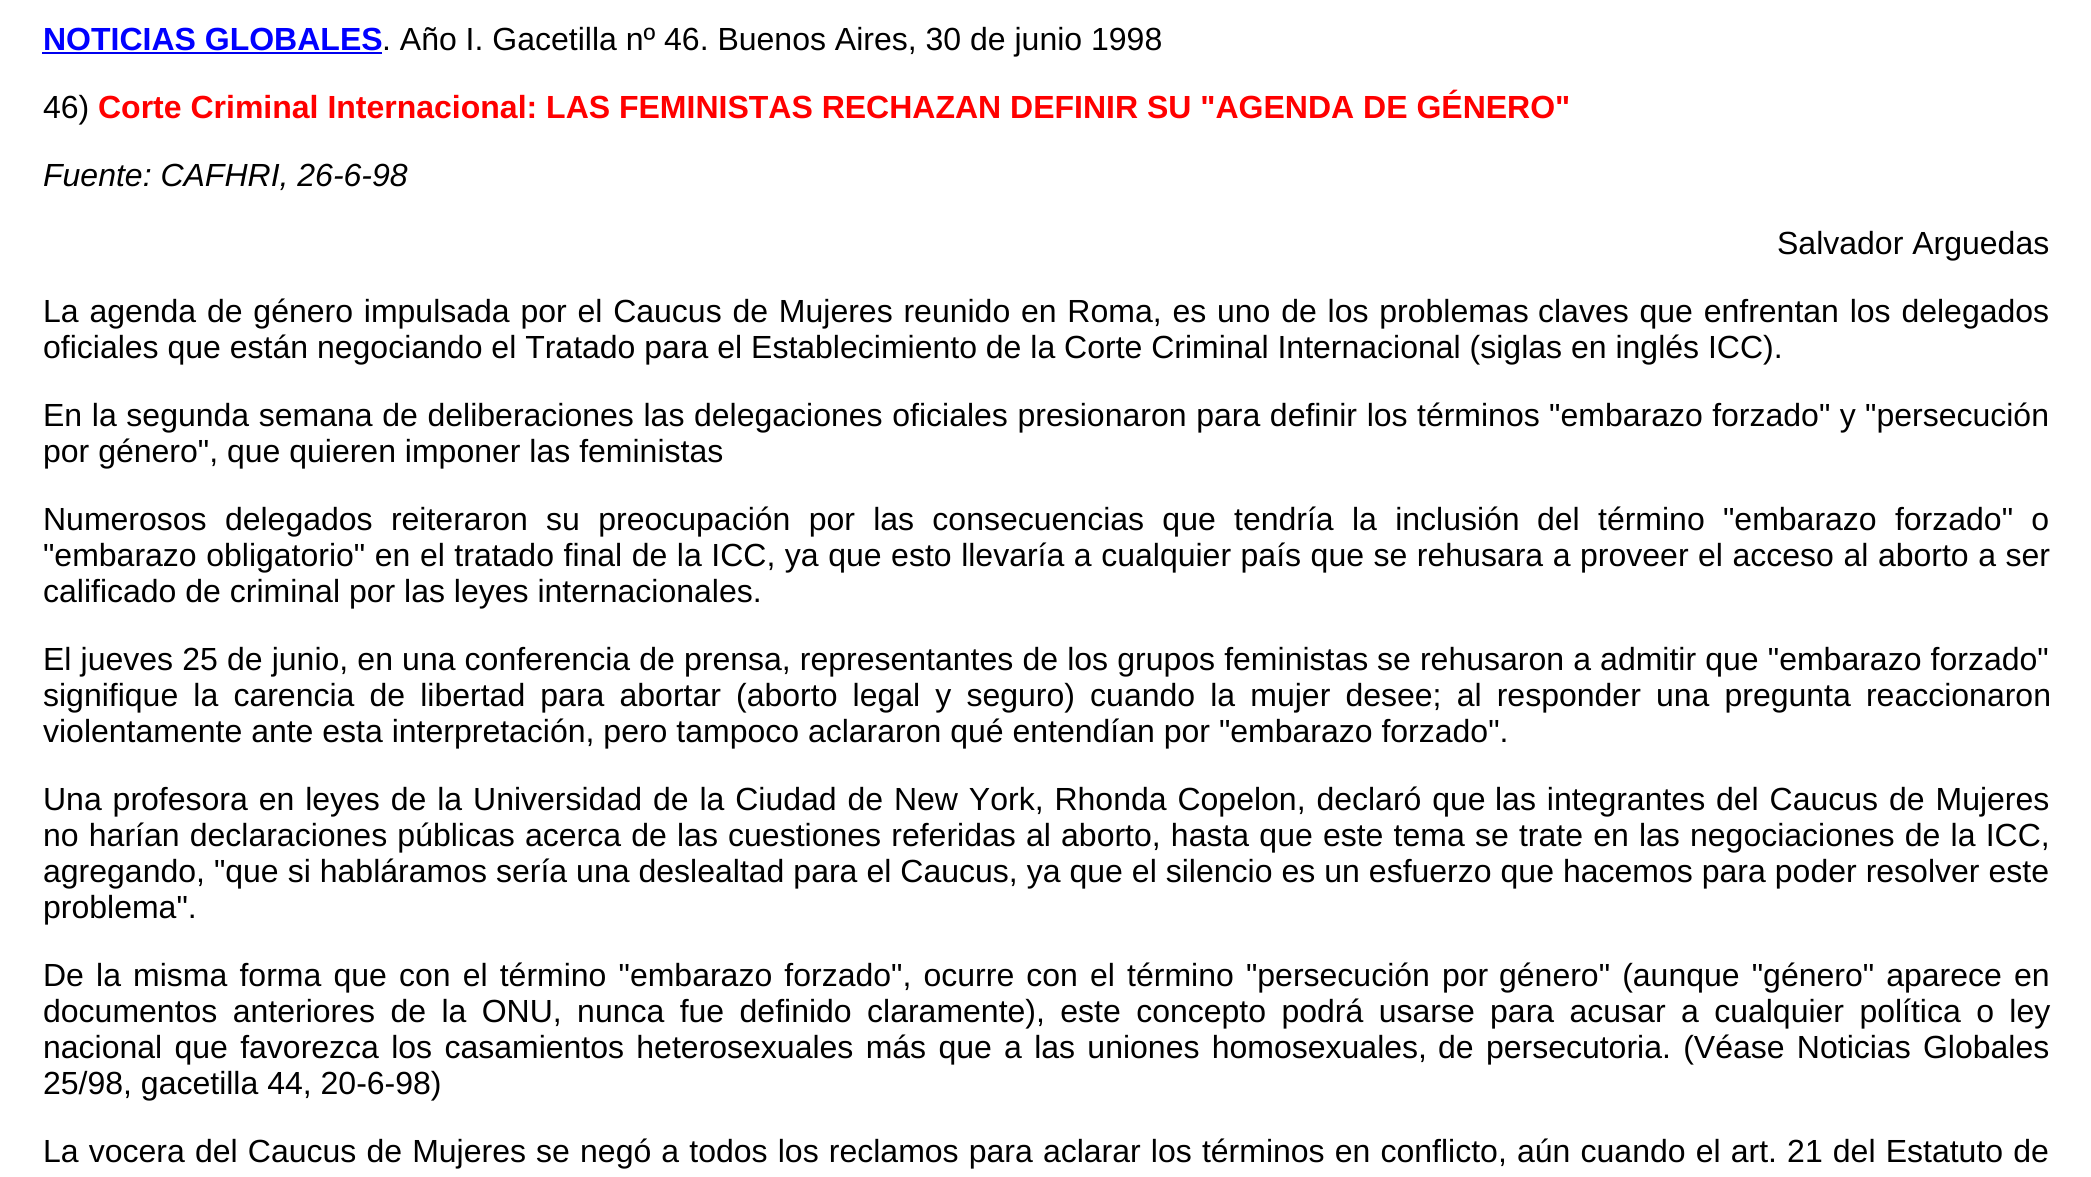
import math
import cairo



def draw_spaced(context, x, y, s, letter, word):
    context.move_to(x, y)
    for ch in s:
        context.show_text(ch)
        context.rel_move_to(letter + word * (ch == ' '), 0)


def draw(context):
    context.set_source_rgb(1, 1, 1)
    context.paint()
    context.set_source_rgb(0, 0, 238 / 255)
    context.rectangle(42, 52, 340, 2)
    context.fill()
    context.select_font_face("Liberation Sans", cairo.FontSlant.NORMAL, cairo.FontWeight.BOLD)
    context.set_font_size(32)
    context.set_source_rgb(0, 0, 1)
    context.move_to(43, 50)
    context.show_text("NOTICIAS GLOBALES")
    context.select_font_face("Liberation Sans")
    context.set_source_rgb(0, 0, 0)
    context.move_to(382, 50)
    context.show_text(". Año I. Gacetilla nº 46. Buenos Aires, 30 de junio 1998")
    context.move_to(43, 118)
    context.show_text("46)")
    context.select_font_face("Liberation Sans", cairo.FontSlant.NORMAL, cairo.FontWeight.BOLD)
    context.set_source_rgb(1, 0, 0)
    context.move_to(98, 118)
    context.show_text("Corte Criminal Internacional: LAS FEMINISTAS RECHAZAN DEFINIR SU \"AGENDA DE GÉNERO\"")
    context.select_font_face("Liberation Sans", cairo.FontSlant.ITALIC)
    context.set_source_rgb(0, 0, 0)
    context.move_to(43, 186)
    context.show_text("Fuente: CAFHRI, 26-6-98")
    context.select_font_face("Liberation Sans")
    context.move_to(1777, 254)
    context.show_text("Salvador Arguedas")
    draw_spaced(context, 43, 322, "La agenda de género impulsada por el Caucus de Mujeres reunido en Roma, es uno de los problemas", 0, 1.9)
    draw_spaced(context, 1538, 322, "claves que enfrentan los delegados", 0, 1.9)
    context.move_to(43, 358)
    context.show_text("oficiales que están negociando el Tratado para el Establecimiento de la Corte Criminal Internacional (siglas en inglés ICC).")
    draw_spaced(context, 43, 426, "En la segunda semana de deliberaciones las delegaciones oficiales presionaron para definir los", 0, 0.75)
    draw_spaced(context, 1417, 426, "términos \"embarazo forzado\" y \"persecución", 0, 0.5)
    context.move_to(43, 462)
    context.show_text("por género\", que quieren imponer las feministas")
    draw_spaced(context, 43, 530, "Numerosos delegados reiteraron su preocupación por las consecuencias que tendría la inclusión", 0, 9.4)
    draw_spaced(context, 1537, 530, "del término \"embarazo forzado\" o", 0, 9.4)
    draw_spaced(context, 43, 566, "\"embarazo obligatorio\" en el tratado final de la ICC, ya que esto llevaría a cualquier país que se rehusara a proveer el acceso al aborto a ser", 0, 0.65)
    context.move_to(43, 602)
    context.show_text("calificado de criminal por las leyes internacionales.")
    draw_spaced(context, 43, 670, "El jueves 25 de junio, en una conferencia de prensa, representantes de los grupos feministas", 0, 0.25)
    draw_spaced(context, 1377, 670, "se rehusaron a admitir que \"embarazo forzado\"", 0, 0.25)
    draw_spaced(context, 43, 706, "signifique la carencia de libertad para abortar (aborto legal y seguro) cuando la mujer desee; al responder una pregunta reaccionaron", 0, 6.25)
    context.move_to(43, 742)
    context.show_text("violentamente ante esta interpretación, pero tampoco aclararon qué entendían por \"embarazo forzado\".")
    draw_spaced(context, 43, 810, "Una profesora en leyes de la Universidad de la Ciudad de New York, Rhonda Copelon, declaró que", 0, 2)
    draw_spaced(context, 1495, 810, "las integrantes del Caucus de Mujeres", 0, 2)
    draw_spaced(context, 43, 846, "no harían declaraciones públicas acerca de las cuestiones referidas al aborto, hasta que este tema se trate en las negociaciones de la ICC,", 0, 1.3)
    draw_spaced(context, 43, 882, "agregando, \"que si habláramos sería una deslealtad para el Caucus, ya que el silencio es un esfuerzo que hacemos para poder resolver este", 0, 0.1)
    context.move_to(43, 918)
    context.show_text("problema\".")
    draw_spaced(context, 43, 986, "De la misma forma que con el término \"embarazo forzado\", ocurre con el término \"persecución por", 0, 3.25)
    draw_spaced(context, 1499, 986, "género\" (aunque \"género\" aparece en", 0, 3.25)
    draw_spaced(context, 43, 1022, "documentos anteriores de la ONU, nunca fue definido claramente), este concepto podrá usarse para acusar a cualquier política o ley", 0, 6.5)
    draw_spaced(context, 43, 1058, "nacional que favorezca los casamientos heterosexuales más que a las uniones homosexuales,", 0, 3.4)
    draw_spaced(context, 1438, 1058, "de persecutoria. (Véase Noticias Globales", 0, 3.4)
    context.move_to(43, 1094)
    context.show_text("25/98, gacetilla 44, 20-6-98)")
    draw_spaced(context, 43, 1162, "La vocera del Caucus de Mujeres se negó a todos los reclamos para aclarar los términos en conflicto,", 0, 1.25)
    draw_spaced(context, 1517, 1162, "aún cuando el art. 21 del Estatuto de", 0, 1.25)


surface = cairo.ImageSurface(cairo.Format.RGB24, 2091, 1177)
context = cairo.Context(surface)
options = cairo.FontOptions()
options.set_hint_metrics(cairo.HintMetrics.OFF)
options.set_hint_style(cairo.HintStyle.NONE)
context.set_font_options(options)
context.set_miter_limit(4)
draw(context)
surface.write_to_png("out.png")
